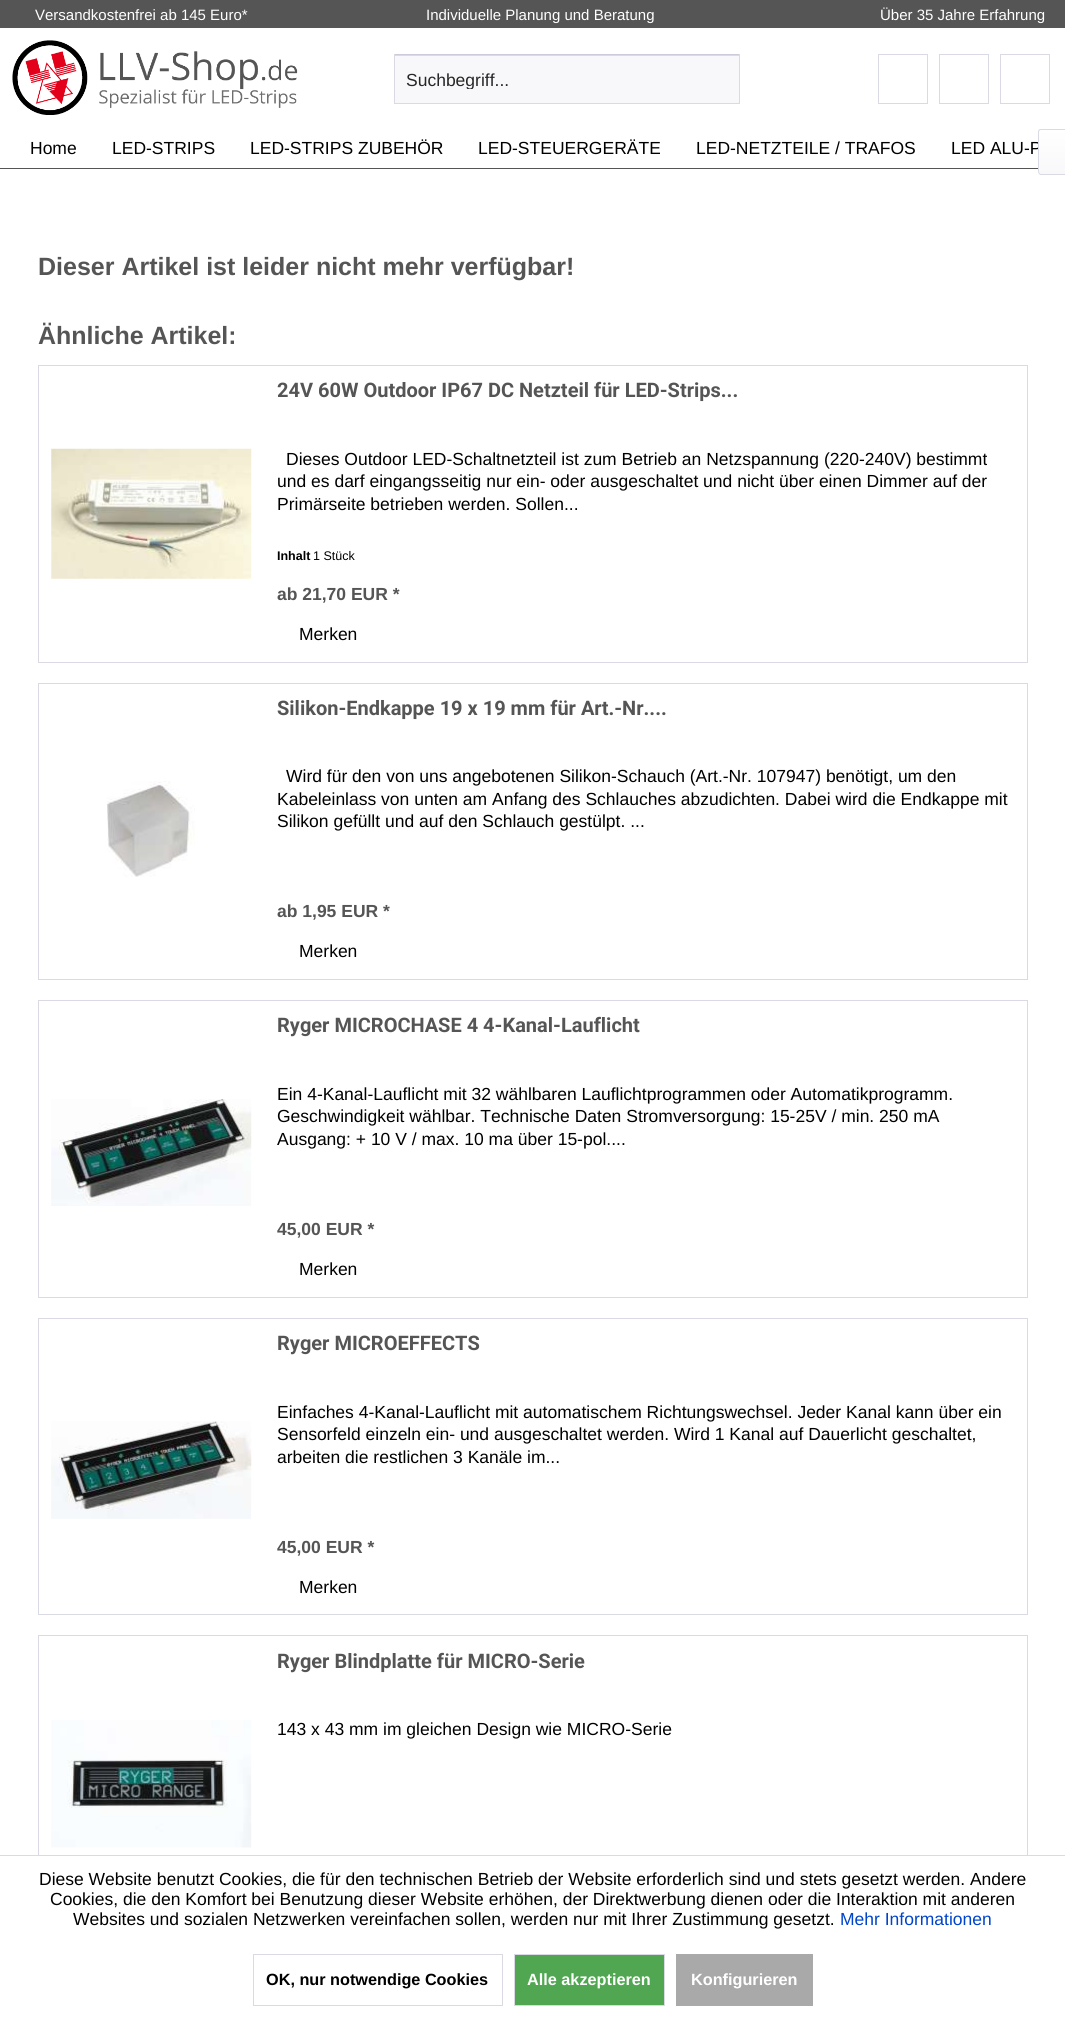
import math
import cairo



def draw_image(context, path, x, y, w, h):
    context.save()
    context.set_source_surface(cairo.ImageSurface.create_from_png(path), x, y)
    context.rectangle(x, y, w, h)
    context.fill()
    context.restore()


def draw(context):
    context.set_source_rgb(1, 1, 1)
    context.paint()
    context.set_source_rgb(85 / 255, 85 / 255, 85 / 255)
    context.rectangle(0, 0, 1065, 28)
    context.fill()
    draw_image(context, "images/1.png", 12, 40, 286, 75)
    context.set_source_rgb(248 / 255, 248 / 255, 250 / 255)
    context.rectangle(395, 56, 344, 47)
    context.fill()
    context.set_source_rgb(218 / 255, 218 / 255, 229 / 255)
    context.rectangle(395, 55, 344, 1)
    context.fill()
    context.set_source_rgb(203 / 255, 203 / 255, 219 / 255)
    context.rectangle(394, 54, 346, 1)
    context.fill()
    context.set_source_rgb(218 / 255, 218 / 255, 229 / 255)
    context.rectangle(739, 54, 1, 50)
    context.fill()
    context.rectangle(394, 103, 346, 1)
    context.fill()
    context.rectangle(394, 54, 1, 50)
    context.fill()
    context.rectangle(878.5, 54.5, 49, 49)
    context.set_line_width(1)
    context.stroke()
    context.rectangle(939.5, 54.5, 49, 49)
    context.stroke()
    context.rectangle(1000.5, 54.5, 49, 49)
    context.stroke()
    context.set_source_rgb(85 / 255, 85 / 255, 85 / 255)
    context.rectangle(0, 168, 1038, 1)
    context.fill()
    context.rectangle(38.5, 365.5, 989, 297)
    context.set_source_rgb(218 / 255, 218 / 255, 229 / 255)
    context.stroke()
    draw_image(context, "images/2.png", 51, 448, 201, 131)
    context.rectangle(38.5, 683.5, 989, 296)
    context.stroke()
    draw_image(context, "images/3.png", 107, 781, 88, 96)
    context.rectangle(38.5, 1000.5, 989, 297)
    context.stroke()
    draw_image(context, "images/4.png", 51, 1099, 201, 107)
    context.rectangle(38.5, 1318.5, 989, 296)
    context.stroke()
    draw_image(context, "images/5.png", 51, 1421, 201, 98)
    context.rectangle(38.5, 1635.5, 989, 297)
    context.stroke()
    draw_image(context, "images/6.png", 51, 1720, 201, 128)
    context.set_source_rgb(1, 1, 1)
    context.rectangle(38, 1856, 990, 77)
    context.fill()
    context.set_source_rgb(218 / 255, 218 / 255, 229 / 255)
    context.rectangle(0, 1855, 1065, 1)
    context.fill()
    context.rectangle(253.5, 1954.5, 249, 51)
    context.stroke()
    context.set_source_rgb(81 / 255, 167 / 255, 81 / 255)
    context.rectangle(514.5, 1954.5, 150, 51)
    context.fill_preserve()
    context.set_source_rgb(218 / 255, 218 / 255, 229 / 255)
    context.stroke()
    context.set_source_rgb(169 / 255, 169 / 255, 169 / 255)
    context.rectangle(676, 1954, 137, 52)
    context.fill()
    context.select_font_face("Liberation Sans")
    context.set_font_size(15)
    context.set_source_rgb(1, 1, 1)
    context.move_to(35, 20)
    context.show_text("Versandkostenfrei ab 145 Euro*")
    context.move_to(426, 20)
    context.show_text("Individuelle Planung und Beratung")
    context.move_to(880, 20)
    context.show_text("Über 35 Jahre Erfahrung")
    context.save()
    context.rectangle(406, 69, 280, 20)
    context.clip()
    context.set_font_size(17.5)
    context.set_source_rgb(38 / 255, 38 / 255, 38 / 255)
    context.move_to(406, 86)
    context.show_text("Suchbegriff...")
    context.restore()
    context.set_font_size(17.5)
    context.set_source_rgb(0, 0, 0)
    context.move_to(30, 154)
    context.show_text("Home")
    context.move_to(112, 154)
    context.show_text("LED-STRIPS")
    context.move_to(250, 154)
    context.show_text("LED-STRIPS ZUBEHÖR")
    context.move_to(478, 154)
    context.show_text("LED-STEUERGERÄTE")
    context.move_to(696, 154)
    context.show_text("LED-NETZTEILE / TRAFOS")
    context.move_to(951, 154)
    context.show_text("LED ALU-P")
    gradient = cairo.LinearGradient(1052, 130, 1052, 174)
    gradient.add_color_stop_rgba(0, 1, 1, 1, 1)
    gradient.add_color_stop_rgba(1, 248 / 255, 248 / 255, 250 / 255, 1)
    context.set_source(gradient)
    context.new_path()
    context.move_to(1041.5, 130)
    context.line_to(1065, 130)
    context.line_to(1065, 174)
    context.line_to(1041.5, 174)
    context.curve_to(1040, 174, 1039, 173, 1039, 171.5)
    context.line_to(1039, 132.5)
    context.curve_to(1039, 131, 1040, 130, 1041.5, 130)
    context.close_path()
    context.fill()
    context.set_source_rgb(218 / 255, 218 / 255, 229 / 255)
    context.set_fill_rule(cairo.FillRule.EVEN_ODD)
    context.new_path()
    context.move_to(1041, 129)
    context.line_to(1065, 129)
    context.line_to(1065, 175)
    context.line_to(1041, 175)
    context.curve_to(1039, 175, 1038, 173, 1038, 171)
    context.line_to(1038, 132)
    context.curve_to(1038, 130, 1039, 129, 1041, 129)
    context.close_path()
    context.move_to(1041, 130)
    context.line_to(1065, 130)
    context.line_to(1065, 174)
    context.line_to(1041, 174)
    context.curve_to(1040, 174, 1039, 173, 1039, 171)
    context.line_to(1039, 132)
    context.curve_to(1039, 131, 1040, 130, 1041, 130)
    context.close_path()
    context.fill()
    context.select_font_face("Liberation Sans", cairo.FontSlant.NORMAL, cairo.FontWeight.BOLD)
    context.set_font_size(25)
    context.set_source_rgb(85 / 255, 85 / 255, 85 / 255)
    context.move_to(38, 275)
    context.show_text("Dieser Artikel ist leider nicht mehr verfügbar!")
    context.move_to(38, 344)
    context.show_text("Ähnliche Artikel:")
    context.select_font_face("Roboto", cairo.FontSlant.NORMAL, cairo.FontWeight.BOLD)
    context.set_font_size(20)
    context.move_to(277, 397)
    context.show_text("24V 60W Outdoor IP67 DC Netzteil für LED-Strips...")
    context.select_font_face("Liberation Sans")
    context.set_font_size(17.5)
    context.set_source_rgb(0, 0, 0)
    context.move_to(286, 465)
    context.show_text("Dieses Outdoor LED-Schaltnetzteil ist zum Betrieb an Netzspannung (220-240V) bestimmt")
    context.move_to(277, 487)
    context.show_text("und es darf eingangsseitig nur ein- oder ausgeschaltet und nicht über einen Dimmer auf der")
    context.move_to(277, 510)
    context.show_text("Primärseite betrieben werden. Sollen...")
    context.select_font_face("Liberation Sans", cairo.FontSlant.NORMAL, cairo.FontWeight.BOLD)
    context.set_font_size(12.5)
    context.move_to(277, 560)
    context.show_text("Inhalt")
    context.select_font_face("Liberation Sans")
    context.move_to(313, 560)
    context.show_text("1 Stück")
    context.select_font_face("Liberation Sans", cairo.FontSlant.NORMAL, cairo.FontWeight.BOLD)
    context.set_font_size(17.5)
    context.set_source_rgb(85 / 255, 85 / 255, 85 / 255)
    context.move_to(277, 600)
    context.show_text("ab 21,70 EUR *")
    context.select_font_face("Liberation Sans")
    context.set_source_rgb(0, 0, 0)
    context.move_to(299, 640)
    context.show_text("Merken")
    context.select_font_face("Roboto", cairo.FontSlant.NORMAL, cairo.FontWeight.BOLD)
    context.set_font_size(20)
    context.set_source_rgb(85 / 255, 85 / 255, 85 / 255)
    context.move_to(277, 715)
    context.show_text("Silikon-Endkappe 19 x 19 mm für Art.-Nr....")
    context.select_font_face("Liberation Sans")
    context.set_font_size(17.5)
    context.set_source_rgb(0, 0, 0)
    context.move_to(286, 782)
    context.show_text("Wird für den von uns angebotenen Silikon-Schauch (Art.-Nr. 107947) benötigt, um den")
    context.move_to(277, 805)
    context.show_text("Kabeleinlass von unten am Anfang des Schlauches abzudichten. Dabei wird die Endkappe mit")
    context.move_to(277, 827)
    context.show_text("Silikon gefüllt und auf den Schlauch gestülpt. ...")
    context.select_font_face("Liberation Sans", cairo.FontSlant.NORMAL, cairo.FontWeight.BOLD)
    context.set_source_rgb(85 / 255, 85 / 255, 85 / 255)
    context.move_to(277, 917)
    context.show_text("ab 1,95 EUR *")
    context.select_font_face("Liberation Sans")
    context.set_source_rgb(0, 0, 0)
    context.move_to(299, 957)
    context.show_text("Merken")
    context.select_font_face("Roboto", cairo.FontSlant.NORMAL, cairo.FontWeight.BOLD)
    context.set_font_size(20)
    context.set_source_rgb(85 / 255, 85 / 255, 85 / 255)
    context.move_to(277, 1032)
    context.show_text("Ryger MICROCHASE 4 4-Kanal-Lauflicht")
    context.select_font_face("Liberation Sans")
    context.set_font_size(17.5)
    context.set_source_rgb(0, 0, 0)
    context.move_to(277, 1100)
    context.show_text("Ein 4-Kanal-Lauflicht mit 32 wählbaren Lauflichtprogrammen oder Automatikprogramm.")
    context.move_to(277, 1122)
    context.show_text("Geschwindigkeit wählbar. Technische Daten Stromversorgung: 15-25V / min. 250 mA")
    context.move_to(277, 1145)
    context.show_text("Ausgang: + 10 V / max. 10 ma über 15-pol....")
    context.select_font_face("Liberation Sans", cairo.FontSlant.NORMAL, cairo.FontWeight.BOLD)
    context.set_source_rgb(85 / 255, 85 / 255, 85 / 255)
    context.move_to(277, 1235)
    context.show_text("45,00 EUR *")
    context.select_font_face("Liberation Sans")
    context.set_source_rgb(0, 0, 0)
    context.move_to(299, 1275)
    context.show_text("Merken")
    context.select_font_face("Roboto", cairo.FontSlant.NORMAL, cairo.FontWeight.BOLD)
    context.set_font_size(20)
    context.set_source_rgb(85 / 255, 85 / 255, 85 / 255)
    context.move_to(277, 1350)
    context.show_text("Ryger MICROEFFECTS")
    context.select_font_face("Liberation Sans")
    context.set_font_size(17.5)
    context.set_source_rgb(0, 0, 0)
    context.move_to(277, 1418)
    context.show_text("Einfaches 4-Kanal-Lauflicht mit automatischem Richtungswechsel. Jeder Kanal kann über ein")
    context.move_to(277, 1440)
    context.show_text("Sensorfeld einzeln ein- und ausgeschaltet werden. Wird 1 Kanal auf Dauerlicht geschaltet,")
    context.move_to(277, 1463)
    context.show_text("arbeiten die restlichen 3 Kanäle im...")
    context.select_font_face("Liberation Sans", cairo.FontSlant.NORMAL, cairo.FontWeight.BOLD)
    context.set_source_rgb(85 / 255, 85 / 255, 85 / 255)
    context.move_to(277, 1553)
    context.show_text("45,00 EUR *")
    context.select_font_face("Liberation Sans")
    context.set_source_rgb(0, 0, 0)
    context.move_to(299, 1593)
    context.show_text("Merken")
    context.select_font_face("Roboto", cairo.FontSlant.NORMAL, cairo.FontWeight.BOLD)
    context.set_font_size(20)
    context.set_source_rgb(85 / 255, 85 / 255, 85 / 255)
    context.move_to(277, 1668)
    context.show_text("Ryger Blindplatte für MICRO-Serie")
    context.select_font_face("Liberation Sans")
    context.set_font_size(17.5)
    context.set_source_rgb(0, 0, 0)
    context.move_to(277, 1735)
    context.show_text("143 x 43 mm im gleichen Design wie MICRO-Serie")
    context.move_to(39, 1885)
    context.show_text("Diese Website benutzt Cookies, die für den technischen Betrieb der Website erforderlich sind und stets gesetzt werden. Andere")
    context.move_to(50, 1905)
    context.show_text("Cookies, die den Komfort bei Benutzung dieser Website erhöhen, der Direktwerbung dienen oder die Interaktion mit anderen")
    context.move_to(73, 1925)
    context.show_text("Websites und sozialen Netzwerken vereinfachen sollen, werden nur mit Ihrer Zustimmung gesetzt.")
    context.set_source_rgb(0, 68 / 255, 204 / 255)
    context.move_to(840, 1925)
    context.show_text("Mehr Informationen")
    context.select_font_face("Liberation Sans", cairo.FontSlant.NORMAL, cairo.FontWeight.BOLD)
    context.set_font_size(16.25)
    context.set_source_rgb(0, 0, 0)
    context.move_to(266, 1985)
    context.show_text("OK, nur notwendige Cookies")
    context.set_source_rgb(1, 1, 1)
    context.move_to(527, 1985)
    context.show_text("Alle akzeptieren")
    context.move_to(691, 1985)
    context.show_text("Konfigurieren")


surface = cairo.ImageSurface(cairo.Format.RGB24, 1065, 2018)
context = cairo.Context(surface)
options = cairo.FontOptions()
options.set_hint_metrics(cairo.HintMetrics.OFF)
options.set_hint_style(cairo.HintStyle.NONE)
context.set_font_options(options)
context.set_miter_limit(4)
draw(context)
surface.write_to_png("out.png")
